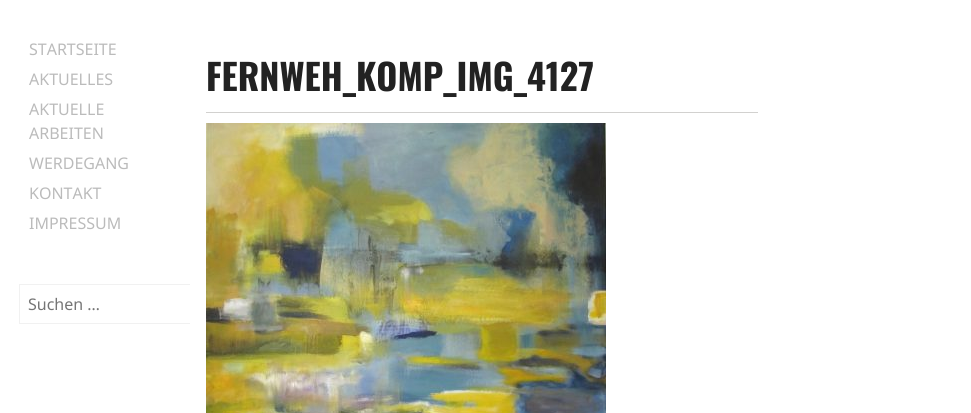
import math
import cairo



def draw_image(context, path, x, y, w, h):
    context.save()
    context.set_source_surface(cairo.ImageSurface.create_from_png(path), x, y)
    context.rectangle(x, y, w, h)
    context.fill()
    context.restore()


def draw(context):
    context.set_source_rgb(1, 1, 1)
    context.paint()
    context.set_source_rgb(210 / 255, 209 / 255, 207 / 255)
    context.rectangle(206, 112, 552, 1)
    context.fill()
    draw_image(context, "images/1.png", 206, 123, 400, 290)
    context.save()
    context.rectangle(19, 264, 171, 104)
    context.clip()
    context.rectangle(19.5, 284.5, 198, 39)
    context.set_source_rgb(241 / 255, 241 / 255, 241 / 255)
    context.set_line_width(1)
    context.stroke()
    context.restore()
    context.select_font_face("Noto Sans")
    context.set_font_size(16)
    context.set_source_rgb(187 / 255, 187 / 255, 187 / 255)
    context.move_to(29, 55)
    context.show_text("STARTSEITE")
    context.move_to(29, 85)
    context.show_text("AKTUELLES")
    context.move_to(29, 115)
    context.show_text("AKTUELLE")
    context.move_to(29, 139)
    context.show_text("ARBEITEN")
    context.move_to(29, 169)
    context.show_text("WERDEGANG")
    context.move_to(29, 199)
    context.show_text("KONTAKT")
    context.move_to(29, 229)
    context.show_text("IMPRESSUM")
    context.select_font_face("Oswald", cairo.FontSlant.NORMAL, cairo.FontWeight.BOLD)
    context.set_font_size(36)
    context.set_source_rgb(34 / 255, 34 / 255, 34 / 255)
    context.move_to(206, 91)
    context.show_text("FERNWEH_KOMP_IMG_4127")
    context.select_font_face("Noto Sans")
    context.set_font_size(16)
    context.set_source_rgb(117 / 255, 117 / 255, 117 / 255)
    context.move_to(28, 310)
    context.show_text("Suchen …")


surface = cairo.ImageSurface(cairo.Format.RGB24, 971, 413)
context = cairo.Context(surface)
options = cairo.FontOptions()
options.set_hint_metrics(cairo.HintMetrics.OFF)
options.set_hint_style(cairo.HintStyle.NONE)
context.set_font_options(options)
context.set_miter_limit(4)
draw(context)
surface.write_to_png("out.png")
